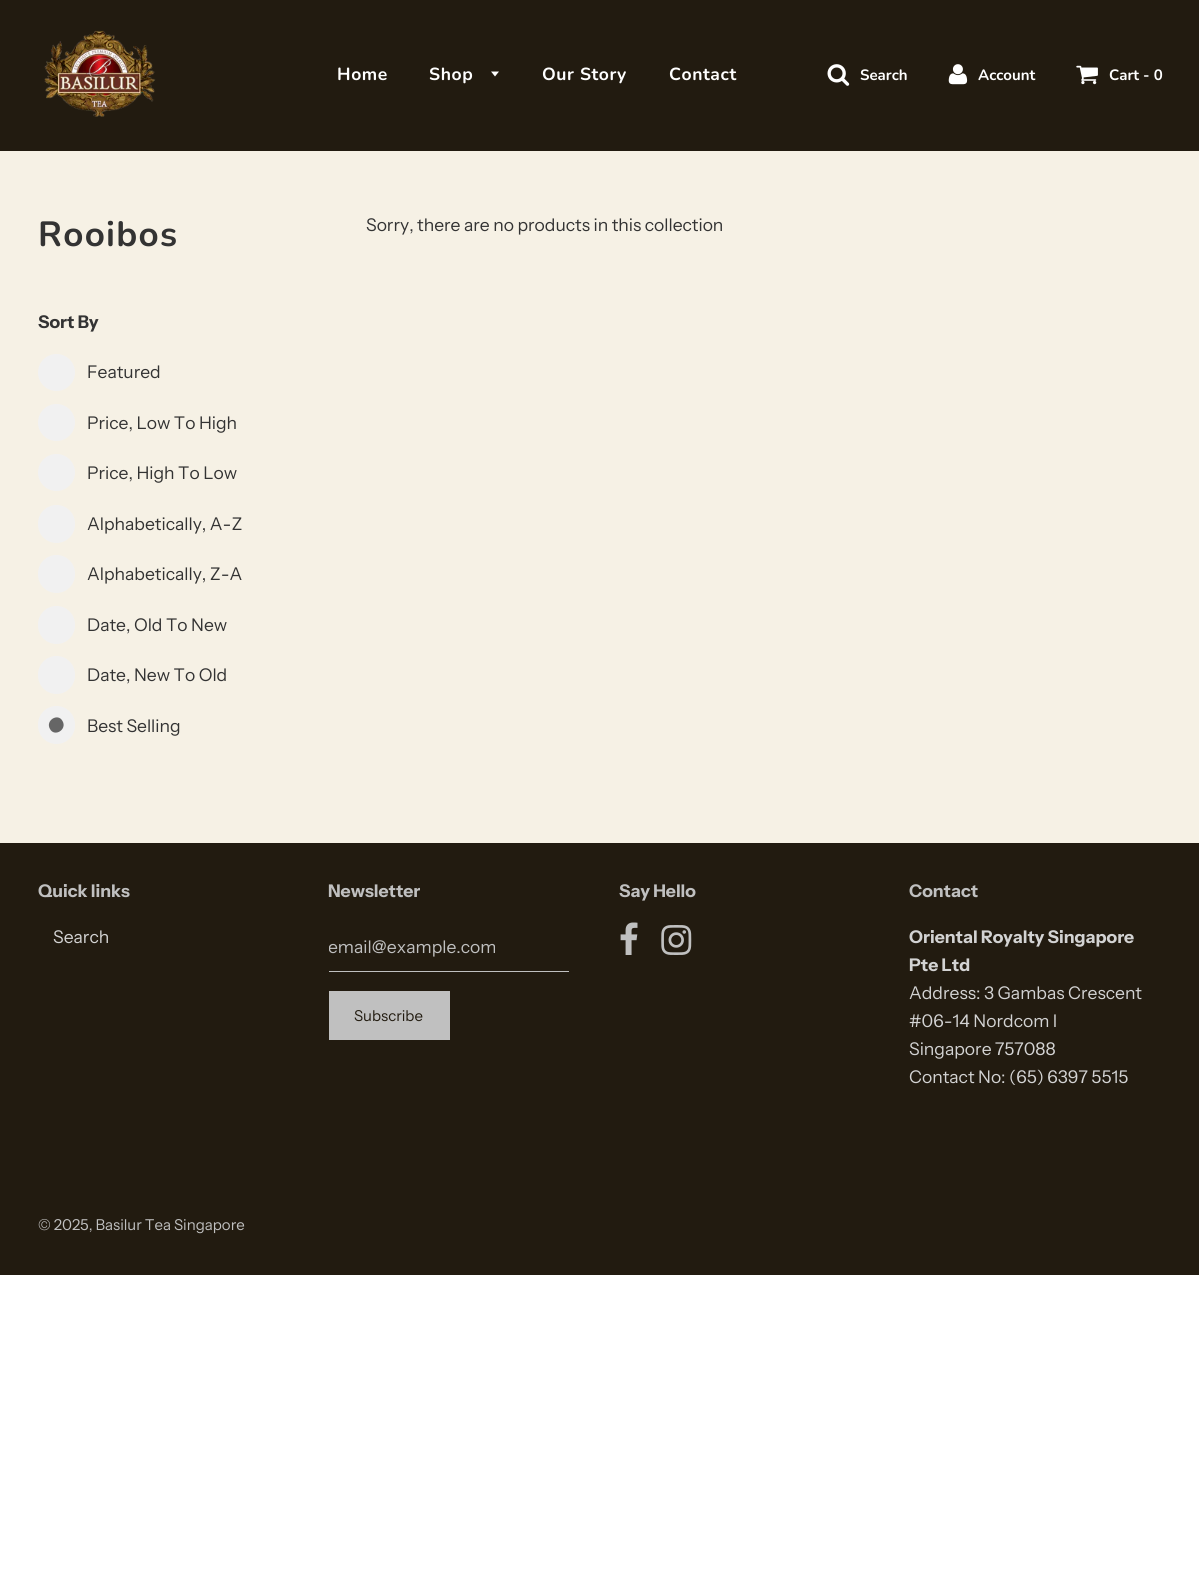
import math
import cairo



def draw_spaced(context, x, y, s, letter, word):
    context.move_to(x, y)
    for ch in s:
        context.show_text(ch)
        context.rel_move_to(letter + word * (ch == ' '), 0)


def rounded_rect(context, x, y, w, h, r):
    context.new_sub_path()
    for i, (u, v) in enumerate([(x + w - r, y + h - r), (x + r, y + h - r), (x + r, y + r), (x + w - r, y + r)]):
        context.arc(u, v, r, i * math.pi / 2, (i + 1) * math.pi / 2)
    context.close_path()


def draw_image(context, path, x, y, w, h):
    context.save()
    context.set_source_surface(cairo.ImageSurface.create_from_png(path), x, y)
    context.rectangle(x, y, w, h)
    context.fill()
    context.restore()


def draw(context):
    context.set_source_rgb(1, 1, 1)
    context.paint()
    context.set_source_rgb(246 / 255, 241 / 255, 229 / 255)
    context.rectangle(0, 151, 1199, 692)
    context.fill()
    context.set_source_rgb(34 / 255, 27 / 255, 16 / 255)
    context.rectangle(0, 0, 1199, 151)
    context.fill()
    draw_image(context, "images/1.png", 44, 30, 112, 87)
    context.set_source_rgb(1, 1, 1)
    context.new_path()
    context.move_to(491, 71.5)
    context.line_to(495, 76.5)
    context.line_to(499, 71.5)
    context.close_path()
    context.fill()
    draw_image(context, "images/2.png", 827, 64, 23, 22)
    draw_image(context, "images/3.png", 948, 64, 20, 21)
    draw_image(context, "images/4.png", 1076, 65, 22, 20)
    context.set_source_rgb(241 / 255, 241 / 255, 241 / 255)
    context.arc(56.5, 372.5, 18.5, 0, 2 * math.pi)
    context.fill()
    context.arc(56.5, 422.5, 18.5, 0, 2 * math.pi)
    context.fill()
    context.arc(56.5, 472.5, 18.5, 0, 2 * math.pi)
    context.fill()
    rounded_rect(context, 38, 505, 37, 38, 18.5)
    context.fill()
    rounded_rect(context, 38, 555, 37, 38, 18.5)
    context.fill()
    rounded_rect(context, 38, 606, 37, 38, 18.5)
    context.fill()
    rounded_rect(context, 38, 656, 37, 38, 18.5)
    context.fill()
    rounded_rect(context, 38, 706, 37, 38, 18.5)
    context.fill()
    context.set_source_rgb(102 / 255, 102 / 255, 102 / 255)
    context.new_path()
    context.move_to(62.5, 721)
    context.curve_to(67.5, 729.5, 54.5, 737.5, 50, 729)
    context.curve_to(45, 720.5, 58, 712.5, 62.5, 721)
    context.close_path()
    context.fill()
    context.set_source_rgb(34 / 255, 27 / 255, 16 / 255)
    context.rectangle(0, 843, 1199, 432)
    context.fill()
    context.set_source_rgb(192 / 255, 192 / 255, 192 / 255)
    context.rectangle(329, 971, 240, 1)
    context.fill()
    context.rectangle(329, 991, 121, 49)
    context.fill()
    draw_image(context, "images/5.png", 620, 922, 18, 33)
    draw_image(context, "images/6.png", 661, 925, 31, 30)
    context.select_font_face("Nunito", cairo.FontSlant.NORMAL, cairo.FontWeight.BOLD)
    context.set_font_size(17.5)
    context.set_source_rgb(1, 1, 1)
    draw_spaced(context, 337, 80, "Home", 0.6, 0)
    draw_spaced(context, 429, 80, "Shop", 0.6, 0)
    draw_spaced(context, 542, 80, "Our Story", 0.6, 0)
    draw_spaced(context, 669, 80, "Contact", 0.6, 0)
    context.set_font_size(15)
    context.move_to(860, 80)
    context.show_text("Search")
    context.move_to(978, 80)
    context.show_text("Account")
    context.move_to(1109, 80)
    context.show_text("Cart - 0")
    context.set_font_size(35)
    context.set_source_rgb(51 / 255, 51 / 255, 51 / 255)
    draw_spaced(context, 38, 246, "Rooibos", 1.25, 0)
    context.select_font_face("Instrument Sans", cairo.FontSlant.NORMAL, cairo.FontWeight.BOLD)
    context.set_font_size(17.5)
    context.move_to(38, 328)
    context.show_text("Sort By")
    context.select_font_face("Instrument Sans")
    context.move_to(87, 378)
    context.show_text("Featured")
    context.move_to(87, 429)
    context.show_text("Price, Low To High")
    context.move_to(87, 479)
    context.show_text("Price, High To Low")
    context.move_to(87, 530)
    context.show_text("Alphabetically, A-Z")
    context.move_to(87, 580)
    context.show_text("Alphabetically, Z-A")
    context.move_to(87, 631)
    context.show_text("Date, Old To New")
    context.move_to(87, 681)
    context.show_text("Date, New To Old")
    context.move_to(87, 732)
    context.show_text("Best Selling")
    context.move_to(366, 231)
    context.show_text("Sorry, there are no products in this collection")
    context.select_font_face("Instrument Sans", cairo.FontSlant.NORMAL, cairo.FontWeight.BOLD)
    context.set_source_rgb(192 / 255, 192 / 255, 192 / 255)
    context.move_to(38, 897)
    context.show_text("Quick links")
    context.select_font_face("Instrument Sans")
    context.set_source_rgb(211 / 255, 211 / 255, 211 / 255)
    context.move_to(53, 943)
    context.show_text("Search")
    context.select_font_face("Instrument Sans", cairo.FontSlant.NORMAL, cairo.FontWeight.BOLD)
    context.set_source_rgb(192 / 255, 192 / 255, 192 / 255)
    context.move_to(328, 897)
    context.show_text("Newsletter")
    context.save()
    context.rectangle(329, 935, 227, 23)
    context.clip()
    context.select_font_face("Instrument Sans")
    context.move_to(328, 953)
    context.show_text("email@example.com")
    context.restore()
    context.select_font_face("Instrument Sans")
    context.set_font_size(15)
    context.set_source_rgb(34 / 255, 27 / 255, 16 / 255)
    context.move_to(354, 1021)
    context.show_text("Subscribe")
    context.select_font_face("Instrument Sans", cairo.FontSlant.NORMAL, cairo.FontWeight.BOLD)
    context.set_font_size(17.5)
    context.set_source_rgb(192 / 255, 192 / 255, 192 / 255)
    context.move_to(619, 897)
    context.show_text("Say Hello")
    context.move_to(909, 897)
    context.show_text("Contact")
    context.set_source_rgb(211 / 255, 211 / 255, 211 / 255)
    context.move_to(909, 943)
    context.show_text("Oriental Royalty Singapore")
    context.move_to(909, 971)
    context.show_text("Pte Ltd")
    context.select_font_face("Instrument Sans")
    context.move_to(909, 999)
    context.show_text("Address: 3 Gambas Crescent")
    context.move_to(909, 1027)
    context.show_text("#06-14 Nordcom I")
    context.move_to(909, 1055)
    context.show_text("Singapore 757088")
    context.move_to(909, 1083)
    context.show_text("Contact No: (65) 6397 5515")
    context.set_font_size(15)
    context.set_source_rgb(192 / 255, 192 / 255, 192 / 255)
    context.move_to(38, 1230)
    context.show_text("© 2025, Basilur Tea Singapore")


surface = cairo.ImageSurface(cairo.Format.RGB24, 1199, 1583)
context = cairo.Context(surface)
options = cairo.FontOptions()
options.set_hint_metrics(cairo.HintMetrics.OFF)
options.set_hint_style(cairo.HintStyle.NONE)
context.set_font_options(options)
context.set_miter_limit(4)
draw(context)
surface.write_to_png("out.png")
